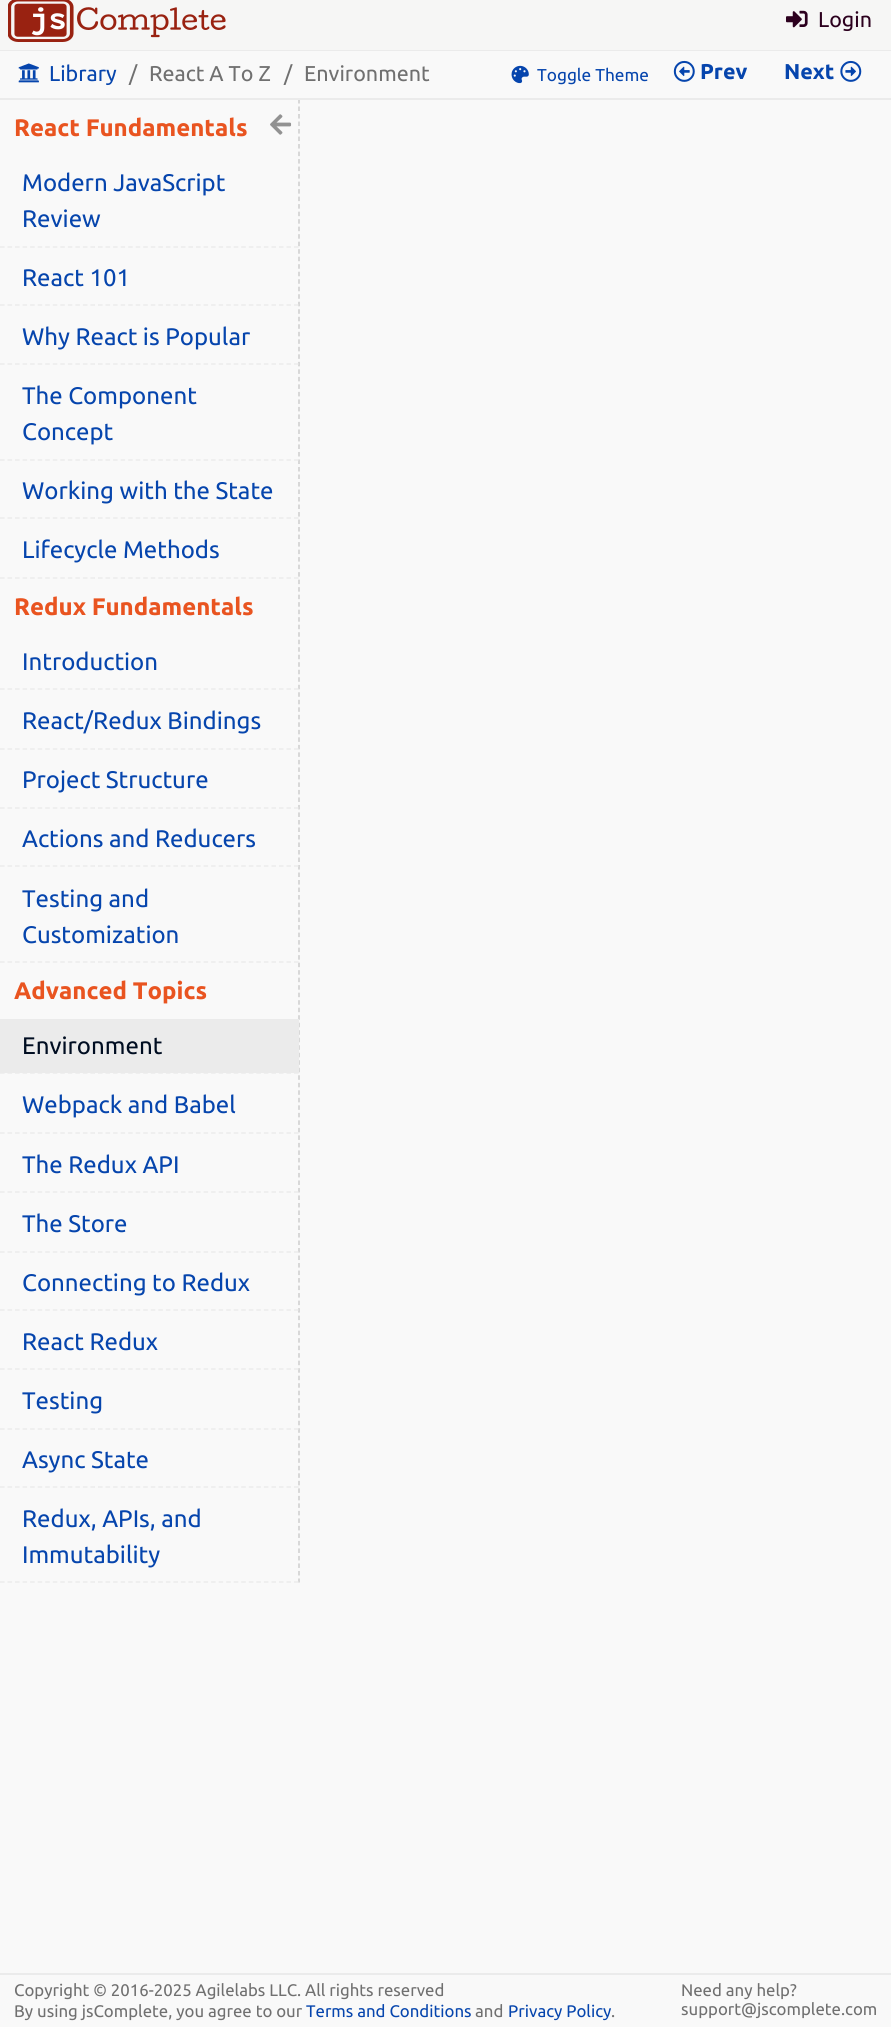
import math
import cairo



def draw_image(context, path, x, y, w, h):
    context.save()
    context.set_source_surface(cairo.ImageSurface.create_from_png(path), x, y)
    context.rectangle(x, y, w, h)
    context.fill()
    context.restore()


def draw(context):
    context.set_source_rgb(249 / 255, 249 / 255, 249 / 255)
    context.paint()
    context.set_source_rgb(235 / 255, 235 / 255, 235 / 255)
    context.rectangle(0, 50, 891, 1)
    context.fill()
    context.set_source_rgb(246 / 255, 246 / 255, 245 / 255)
    context.rectangle(0, 0, 891, 50)
    context.fill()
    draw_image(context, "images/1.png", 8, 0, 218, 42)
    draw_image(context, "images/2.png", 786, 10, 22, 18)
    context.new_path()
    context.move_to(299, 99)
    context.line_to(299, 1582.5)
    context.set_source_rgb(204 / 255, 204 / 255, 204 / 255)
    context.set_line_width(1.5)
    context.set_dash([4.5, 3.01])
    context.stroke()
    context.set_source_rgb(235 / 255, 235 / 255, 235 / 255)
    context.rectangle(0, 98, 891, 2)
    context.fill()
    draw_image(context, "images/3.png", 18, 63, 21, 20)
    draw_image(context, "images/4.png", 511, 65, 18, 19)
    draw_image(context, "images/5.png", 673, 60, 22, 22)
    draw_image(context, "images/6.png", 840, 60, 22, 22)
    context.new_path()
    context.move_to(0, 578)
    context.line_to(298.5, 578)
    context.set_dash([4.5, 3.04])
    context.stroke()
    context.new_path()
    context.move_to(0, 247)
    context.line_to(298.5, 247)
    context.stroke()
    context.new_path()
    context.move_to(0, 305)
    context.line_to(298.5, 305)
    context.stroke()
    context.new_path()
    context.move_to(0, 364)
    context.line_to(298.5, 364)
    context.stroke()
    context.new_path()
    context.move_to(0, 460)
    context.line_to(298.5, 460)
    context.stroke()
    context.new_path()
    context.move_to(0, 518)
    context.line_to(298.5, 518)
    context.stroke()
    context.new_path()
    context.move_to(0, 962)
    context.line_to(298.5, 962)
    context.stroke()
    context.new_path()
    context.move_to(0, 689)
    context.line_to(298.5, 689)
    context.stroke()
    context.new_path()
    context.move_to(0, 749)
    context.line_to(298.5, 749)
    context.stroke()
    context.new_path()
    context.move_to(0, 808)
    context.line_to(298.5, 808)
    context.stroke()
    context.new_path()
    context.move_to(0, 866)
    context.line_to(298.5, 866)
    context.stroke()
    context.new_path()
    context.move_to(0, 1582)
    context.line_to(298.5, 1582)
    context.stroke()
    context.rectangle(0, 1019, 299, 54)
    context.fill()
    context.new_path()
    context.move_to(0, 1073)
    context.line_to(298.5, 1073)
    context.stroke()
    context.new_path()
    context.move_to(0, 1133)
    context.line_to(298.5, 1133)
    context.stroke()
    context.new_path()
    context.move_to(0, 1192)
    context.line_to(298.5, 1192)
    context.stroke()
    context.new_path()
    context.move_to(0, 1252)
    context.line_to(298.5, 1252)
    context.stroke()
    context.new_path()
    context.move_to(0, 1310)
    context.line_to(298.5, 1310)
    context.stroke()
    context.new_path()
    context.move_to(0, 1369)
    context.line_to(298.5, 1369)
    context.stroke()
    context.new_path()
    context.move_to(0, 1429)
    context.line_to(298.5, 1429)
    context.stroke()
    context.new_path()
    context.move_to(0, 1487)
    context.line_to(298.5, 1487)
    context.stroke()
    draw_image(context, "images/7.png", 270, 114, 22, 21)
    context.rectangle(0, 1973, 891, 2)
    context.fill()
    context.select_font_face("Ubuntu")
    context.set_font_size(21.5)
    context.set_source_rgb(44 / 255, 0, 30 / 255)
    context.move_to(818, 27)
    context.show_text("Login")
    context.set_source_rgb(6 / 255, 69 / 255, 173 / 255)
    context.move_to(49, 81)
    context.show_text("Library")
    context.set_source_rgb(112 / 255, 112 / 255, 112 / 255)
    context.move_to(129, 81)
    context.show_text("/")
    context.move_to(149, 81)
    context.show_text("React A To Z")
    context.move_to(284, 81)
    context.show_text("/")
    context.move_to(304, 81)
    context.show_text("Environment")
    context.set_font_size(17.25)
    context.set_source_rgb(6 / 255, 69 / 255, 173 / 255)
    context.move_to(537, 81)
    context.show_text("Toggle Theme")
    context.select_font_face("Ubuntu", cairo.FontSlant.NORMAL, cairo.FontWeight.BOLD)
    context.set_font_size(21.5)
    context.move_to(700, 79)
    context.show_text("Prev")
    context.move_to(784, 79)
    context.show_text("Next")
    context.set_font_size(24)
    context.set_source_rgb(233 / 255, 84 / 255, 32 / 255)
    context.move_to(14, 136)
    context.show_text("React Fundamentals")
    context.select_font_face("Ubuntu")
    context.set_source_rgb(6 / 255, 69 / 255, 173 / 255)
    context.move_to(22, 191)
    context.show_text("Modern JavaScript")
    context.move_to(22, 227)
    context.show_text("Review")
    context.move_to(22, 286)
    context.show_text("React 101")
    context.move_to(22, 345)
    context.show_text("Why React is Popular")
    context.move_to(22, 404)
    context.show_text("The Component")
    context.move_to(22, 440)
    context.show_text("Concept")
    context.move_to(22, 499)
    context.show_text("Working with the State")
    context.move_to(22, 558)
    context.show_text("Lifecycle Methods")
    context.select_font_face("Ubuntu", cairo.FontSlant.NORMAL, cairo.FontWeight.BOLD)
    context.set_source_rgb(233 / 255, 84 / 255, 32 / 255)
    context.move_to(14, 615)
    context.show_text("Redux Fundamentals")
    context.select_font_face("Ubuntu")
    context.set_source_rgb(6 / 255, 69 / 255, 173 / 255)
    context.move_to(22, 670)
    context.show_text("Introduction")
    context.move_to(22, 729)
    context.show_text("React/Redux Bindings")
    context.move_to(22, 788)
    context.show_text("Project Structure")
    context.move_to(22, 847)
    context.show_text("Actions and Reducers")
    context.move_to(22, 907)
    context.show_text("Testing and")
    context.move_to(22, 943)
    context.show_text("Customization")
    context.select_font_face("Ubuntu", cairo.FontSlant.NORMAL, cairo.FontWeight.BOLD)
    context.set_source_rgb(233 / 255, 84 / 255, 32 / 255)
    context.move_to(14, 999)
    context.show_text("Advanced Topics")
    context.select_font_face("Ubuntu")
    context.set_source_rgb(0, 13 / 255, 33 / 255)
    context.move_to(22, 1054)
    context.show_text("Environment")
    context.set_source_rgb(6 / 255, 69 / 255, 173 / 255)
    context.move_to(22, 1113)
    context.show_text("Webpack and Babel")
    context.move_to(22, 1173)
    context.show_text("The Redux API")
    context.move_to(22, 1232)
    context.show_text("The Store")
    context.move_to(22, 1291)
    context.show_text("Connecting to Redux")
    context.move_to(22, 1350)
    context.show_text("React Redux")
    context.move_to(22, 1409)
    context.show_text("Testing")
    context.move_to(22, 1468)
    context.show_text("Async State")
    context.move_to(22, 1527)
    context.show_text("Redux, APIs, and")
    context.move_to(22, 1563)
    context.show_text("Immutability")
    context.set_font_size(16.8)
    context.set_source_rgb(112 / 255, 112 / 255, 112 / 255)
    context.move_to(14, 1996)
    context.show_text("Copyright © 2016-2025 Agilelabs LLC. All rights reserved")
    context.move_to(14, 2017)
    context.show_text("By using jsComplete, you agree to our")
    context.set_source_rgb(6 / 255, 69 / 255, 173 / 255)
    context.move_to(306, 2017)
    context.show_text("Terms and Conditions")
    context.set_source_rgb(112 / 255, 112 / 255, 112 / 255)
    context.move_to(475, 2017)
    context.show_text("and")
    context.set_source_rgb(6 / 255, 69 / 255, 173 / 255)
    context.move_to(508, 2017)
    context.show_text("Privacy Policy")
    context.set_source_rgb(112 / 255, 112 / 255, 112 / 255)
    context.move_to(611, 2017)
    context.show_text(".")
    context.move_to(681, 1996)
    context.show_text("Need any help?")
    context.move_to(681, 2015)
    context.show_text("support@jscomplete.com")


surface = cairo.ImageSurface(cairo.Format.RGB24, 891, 2027)
context = cairo.Context(surface)
options = cairo.FontOptions()
options.set_hint_metrics(cairo.HintMetrics.OFF)
options.set_hint_style(cairo.HintStyle.NONE)
context.set_font_options(options)
context.set_miter_limit(4)
draw(context)
surface.write_to_png("out.png")
